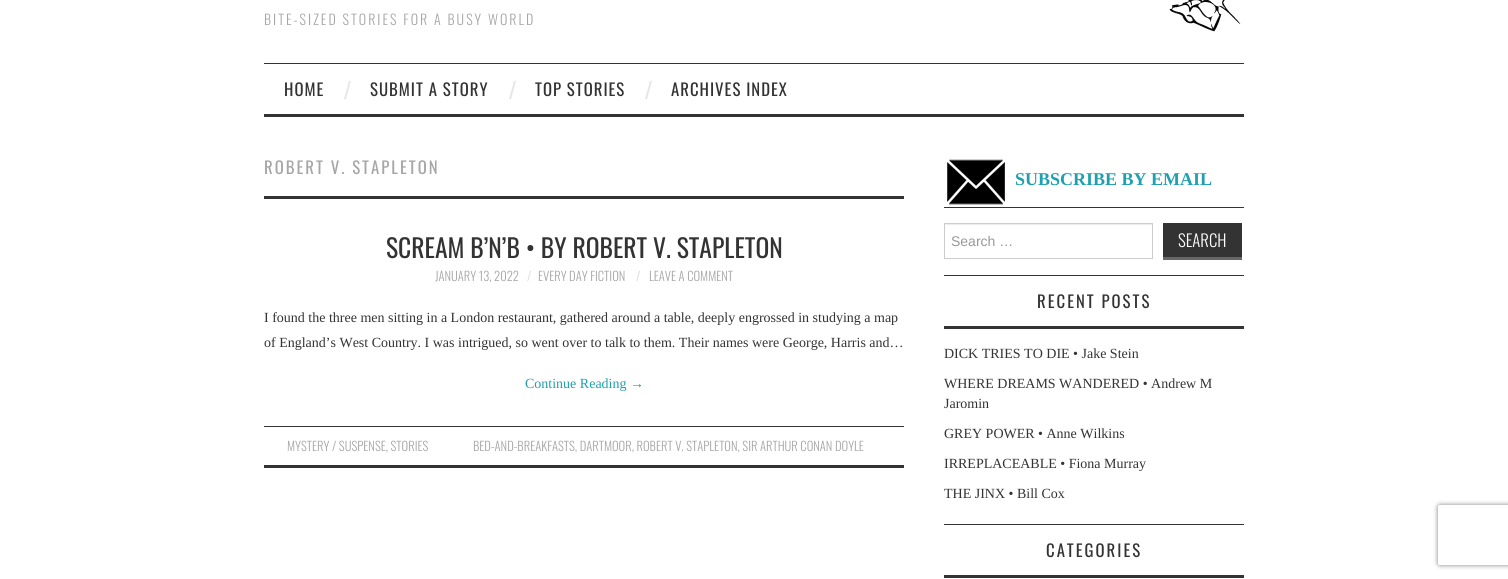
import math
import cairo



def draw_spaced(context, x, y, s, letter, word):
    context.move_to(x, y)
    for ch in s:
        context.show_text(ch)
        context.rel_move_to(letter + word * (ch == ' '), 0)


def rounded_rect(context, x, y, w, h, r):
    context.new_sub_path()
    for i, (u, v) in enumerate([(x + w - r, y + h - r), (x + r, y + h - r), (x + r, y + r), (x + w - r, y + r)]):
        context.arc(u, v, r, i * math.pi / 2, (i + 1) * math.pi / 2)
    context.close_path()


def draw_shadow(context, x, y, w, h, r, blur, alpha):
    context.push_group_with_content(cairo.Content.ALPHA)
    context.set_operator(cairo.Operator.SOURCE)
    for i in range(15, -16, -2):
        e = blur * i / 6
        if min(w, h) + 2 * e > 0:
            context.set_source_rgba(0, 0, 0, alpha * math.erfc((i - 1) / 8.5) / 2)
            rounded_rect(context, x - e, y - e, w + 2 * e, h + 2 * e, max(0, min(r + e + blur * .6, min(w, h) / 2 + e)))
            context.fill()
    context.mask(context.pop_group())


def draw_image(context, path, x, y, w, h):
    context.save()
    context.set_source_surface(cairo.ImageSurface.create_from_png(path), x, y)
    context.rectangle(x, y, w, h)
    context.fill()
    context.restore()


def draw(context):
    context.set_source_rgb(1, 1, 1)
    context.paint()
    draw_image(context, "images/1.png", 1169, 0, 72, 32)
    context.set_source_rgb(51 / 255, 51 / 255, 51 / 255)
    context.rectangle(264, 63, 980, 1)
    context.fill()
    context.rectangle(264, 114, 980, 3)
    context.fill()
    context.rectangle(264, 196, 640, 3)
    context.fill()
    context.rectangle(264, 426, 640, 1)
    context.fill()
    context.rectangle(264, 465, 640, 3)
    context.fill()
    context.rectangle(944, 207, 300, 1)
    context.fill()
    draw_image(context, "images/2.png", 947, 159, 58, 46)
    context.rectangle(944, 275, 300, 1)
    context.fill()
    context.set_source_rgb(236 / 255, 236 / 255, 236 / 255)
    context.rectangle(945, 224, 207, 1)
    context.fill()
    context.rectangle(944.5, 223.5, 208, 35)
    context.set_source_rgb(204 / 255, 204 / 255, 204 / 255)
    context.set_line_width(1)
    context.stroke()
    context.set_source_rgb(51 / 255, 51 / 255, 51 / 255)
    context.rectangle(1163, 223, 79, 34)
    context.fill()
    context.set_source_rgb(102 / 255, 102 / 255, 102 / 255)
    context.rectangle(1163, 257, 79, 3)
    context.fill()
    context.set_source_rgb(51 / 255, 51 / 255, 51 / 255)
    context.rectangle(944, 524, 300, 1)
    context.fill()
    context.rectangle(944, 326, 300, 3)
    context.fill()
    context.rectangle(944, 575, 300, 3)
    context.fill()
    context.save()
    context.set_fill_rule(cairo.FillRule.EVEN_ODD)
    context.new_path()
    context.move_to(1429, 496)
    context.line_to(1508, 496)
    context.line_to(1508, 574)
    context.line_to(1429, 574)
    context.close_path()
    context.move_to(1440, 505)
    context.line_to(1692, 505)
    context.curve_to(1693, 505, 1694, 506, 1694, 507)
    context.line_to(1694, 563)
    context.curve_to(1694, 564, 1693, 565, 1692, 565)
    context.line_to(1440, 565)
    context.curve_to(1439, 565, 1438, 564, 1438, 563)
    context.line_to(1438, 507)
    context.curve_to(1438, 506, 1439, 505, 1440, 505)
    context.close_path()
    context.clip()
    context.set_source_rgb(128 / 255, 128 / 255, 128 / 255)
    draw_shadow(context, 1438, 505, 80, 60, 2, 2.5, 1)
    context.restore()
    context.select_font_face("Oswald Light")
    context.set_font_size(14)
    context.set_source_rgb(166 / 255, 166 / 255, 166 / 255)
    draw_spaced(context, 264, 25, "BITE-SIZED STORIES FOR A BUSY WORLD", 2, 0)
    context.select_font_face("Oswald")
    context.set_font_size(16.75)
    context.set_source_rgb(51 / 255, 51 / 255, 51 / 255)
    draw_spaced(context, 284, 96, "HOME", 1, 0)
    context.select_font_face("Liberation Sans")
    context.set_font_size(25)
    context.set_source_rgb(230 / 255, 230 / 255, 230 / 255)
    context.move_to(344, 99)
    context.show_text("/")
    context.select_font_face("Oswald")
    context.set_font_size(16.75)
    context.set_source_rgb(51 / 255, 51 / 255, 51 / 255)
    draw_spaced(context, 370, 96, "SUBMIT A STORY", 1, 0)
    context.select_font_face("Liberation Sans")
    context.set_font_size(25)
    context.set_source_rgb(230 / 255, 230 / 255, 230 / 255)
    context.move_to(509, 99)
    context.show_text("/")
    context.select_font_face("Oswald")
    context.set_font_size(16.75)
    context.set_source_rgb(51 / 255, 51 / 255, 51 / 255)
    draw_spaced(context, 535, 96, "TOP STORIES", 1, 0)
    context.select_font_face("Liberation Sans")
    context.set_font_size(25)
    context.set_source_rgb(230 / 255, 230 / 255, 230 / 255)
    context.move_to(645, 99)
    context.show_text("/")
    context.select_font_face("Oswald")
    context.set_font_size(16.75)
    context.set_source_rgb(51 / 255, 51 / 255, 51 / 255)
    draw_spaced(context, 671, 96, "ARCHIVES INDEX", 1, 0)
    context.set_source_rgb(166 / 255, 166 / 255, 166 / 255)
    draw_spaced(context, 264, 174, "ROBERT V. STAPLETON", 2, 0)
    context.set_font_size(25.6)
    context.set_source_rgb(51 / 255, 51 / 255, 51 / 255)
    context.move_to(386, 258)
    context.show_text("SCREAM B’N’B • BY ROBERT V. STAPLETON")
    context.select_font_face("Oswald Light")
    context.set_font_size(12.6)
    context.set_source_rgb(166 / 255, 166 / 255, 166 / 255)
    context.move_to(435, 281)
    context.show_text("JANUARY 13, 2022")
    context.set_source_rgb(214 / 255, 214 / 255, 214 / 255)
    context.move_to(527, 281)
    context.show_text("/")
    context.set_source_rgb(166 / 255, 166 / 255, 166 / 255)
    context.move_to(538, 281)
    context.show_text("EVERY DAY FICTION")
    context.set_source_rgb(214 / 255, 214 / 255, 214 / 255)
    context.move_to(636, 281)
    context.show_text("/")
    context.set_source_rgb(166 / 255, 166 / 255, 166 / 255)
    context.move_to(649, 281)
    context.show_text("LEAVE A COMMENT")
    context.select_font_face("Liberation Serif")
    context.set_font_size(14)
    context.set_source_rgb(51 / 255, 51 / 255, 51 / 255)
    context.move_to(264, 322)
    context.show_text("I found the three men sitting in a London restaurant, gathered around a table, deeply engrossed in studying a map")
    context.move_to(264, 347)
    context.show_text("of England’s West Country. I was intrigued, so went over to talk to them. Their names were George, Harris and…")
    context.set_source_rgb(31 / 255, 160 / 255, 174 / 255)
    context.move_to(525, 388)
    context.show_text("Continue Reading →")
    context.select_font_face("Oswald Light")
    context.set_font_size(12.6)
    context.set_source_rgb(166 / 255, 166 / 255, 166 / 255)
    context.move_to(287, 451)
    context.show_text("MYSTERY / SUSPENSE, STORIES")
    context.move_to(473, 451)
    context.show_text("BED-AND-BREAKFASTS, DARTMOOR, ROBERT V. STAPLETON, SIR ARTHUR CONAN DOYLE")
    context.select_font_face("Liberation Serif", cairo.FontSlant.NORMAL, cairo.FontWeight.BOLD)
    context.set_font_size(18)
    context.set_source_rgb(31 / 255, 160 / 255, 174 / 255)
    context.move_to(1015, 185)
    context.show_text("SUBSCRIBE BY EMAIL")
    context.select_font_face("Liberation Sans")
    context.set_font_size(14)
    context.set_source_rgb(153 / 255, 153 / 255, 153 / 255)
    context.move_to(951, 246)
    context.show_text("Search …")
    context.select_font_face("Oswald Light")
    context.set_font_size(16.75)
    context.set_source_rgb(1, 1, 1)
    context.move_to(1178, 247)
    context.show_text("SEARCH")
    context.select_font_face("Oswald")
    context.set_source_rgb(51 / 255, 51 / 255, 51 / 255)
    draw_spaced(context, 1037, 308, "RECENT POSTS", 2, 0)
    context.select_font_face("Liberation Serif")
    context.set_font_size(14)
    context.move_to(944, 358)
    context.show_text("DICK TRIES TO DIE • Jake Stein")
    context.move_to(944, 388)
    context.show_text("WHERE DREAMS WANDERED • Andrew M")
    context.move_to(944, 408)
    context.show_text("Jaromin")
    context.move_to(944, 438)
    context.show_text("GREY POWER • Anne Wilkins")
    context.move_to(944, 468)
    context.show_text("IRREPLACEABLE • Fiona Murray")
    context.move_to(944, 498)
    context.show_text("THE JINX • Bill Cox")
    context.select_font_face("Oswald")
    context.set_font_size(16.75)
    draw_spaced(context, 1046, 557, "CATEGORIES", 2, 0)


surface = cairo.ImageSurface(cairo.Format.RGB24, 1508, 579)
context = cairo.Context(surface)
options = cairo.FontOptions()
options.set_hint_metrics(cairo.HintMetrics.OFF)
options.set_hint_style(cairo.HintStyle.NONE)
context.set_font_options(options)
context.set_miter_limit(4)
draw(context)
surface.write_to_png("out.png")
